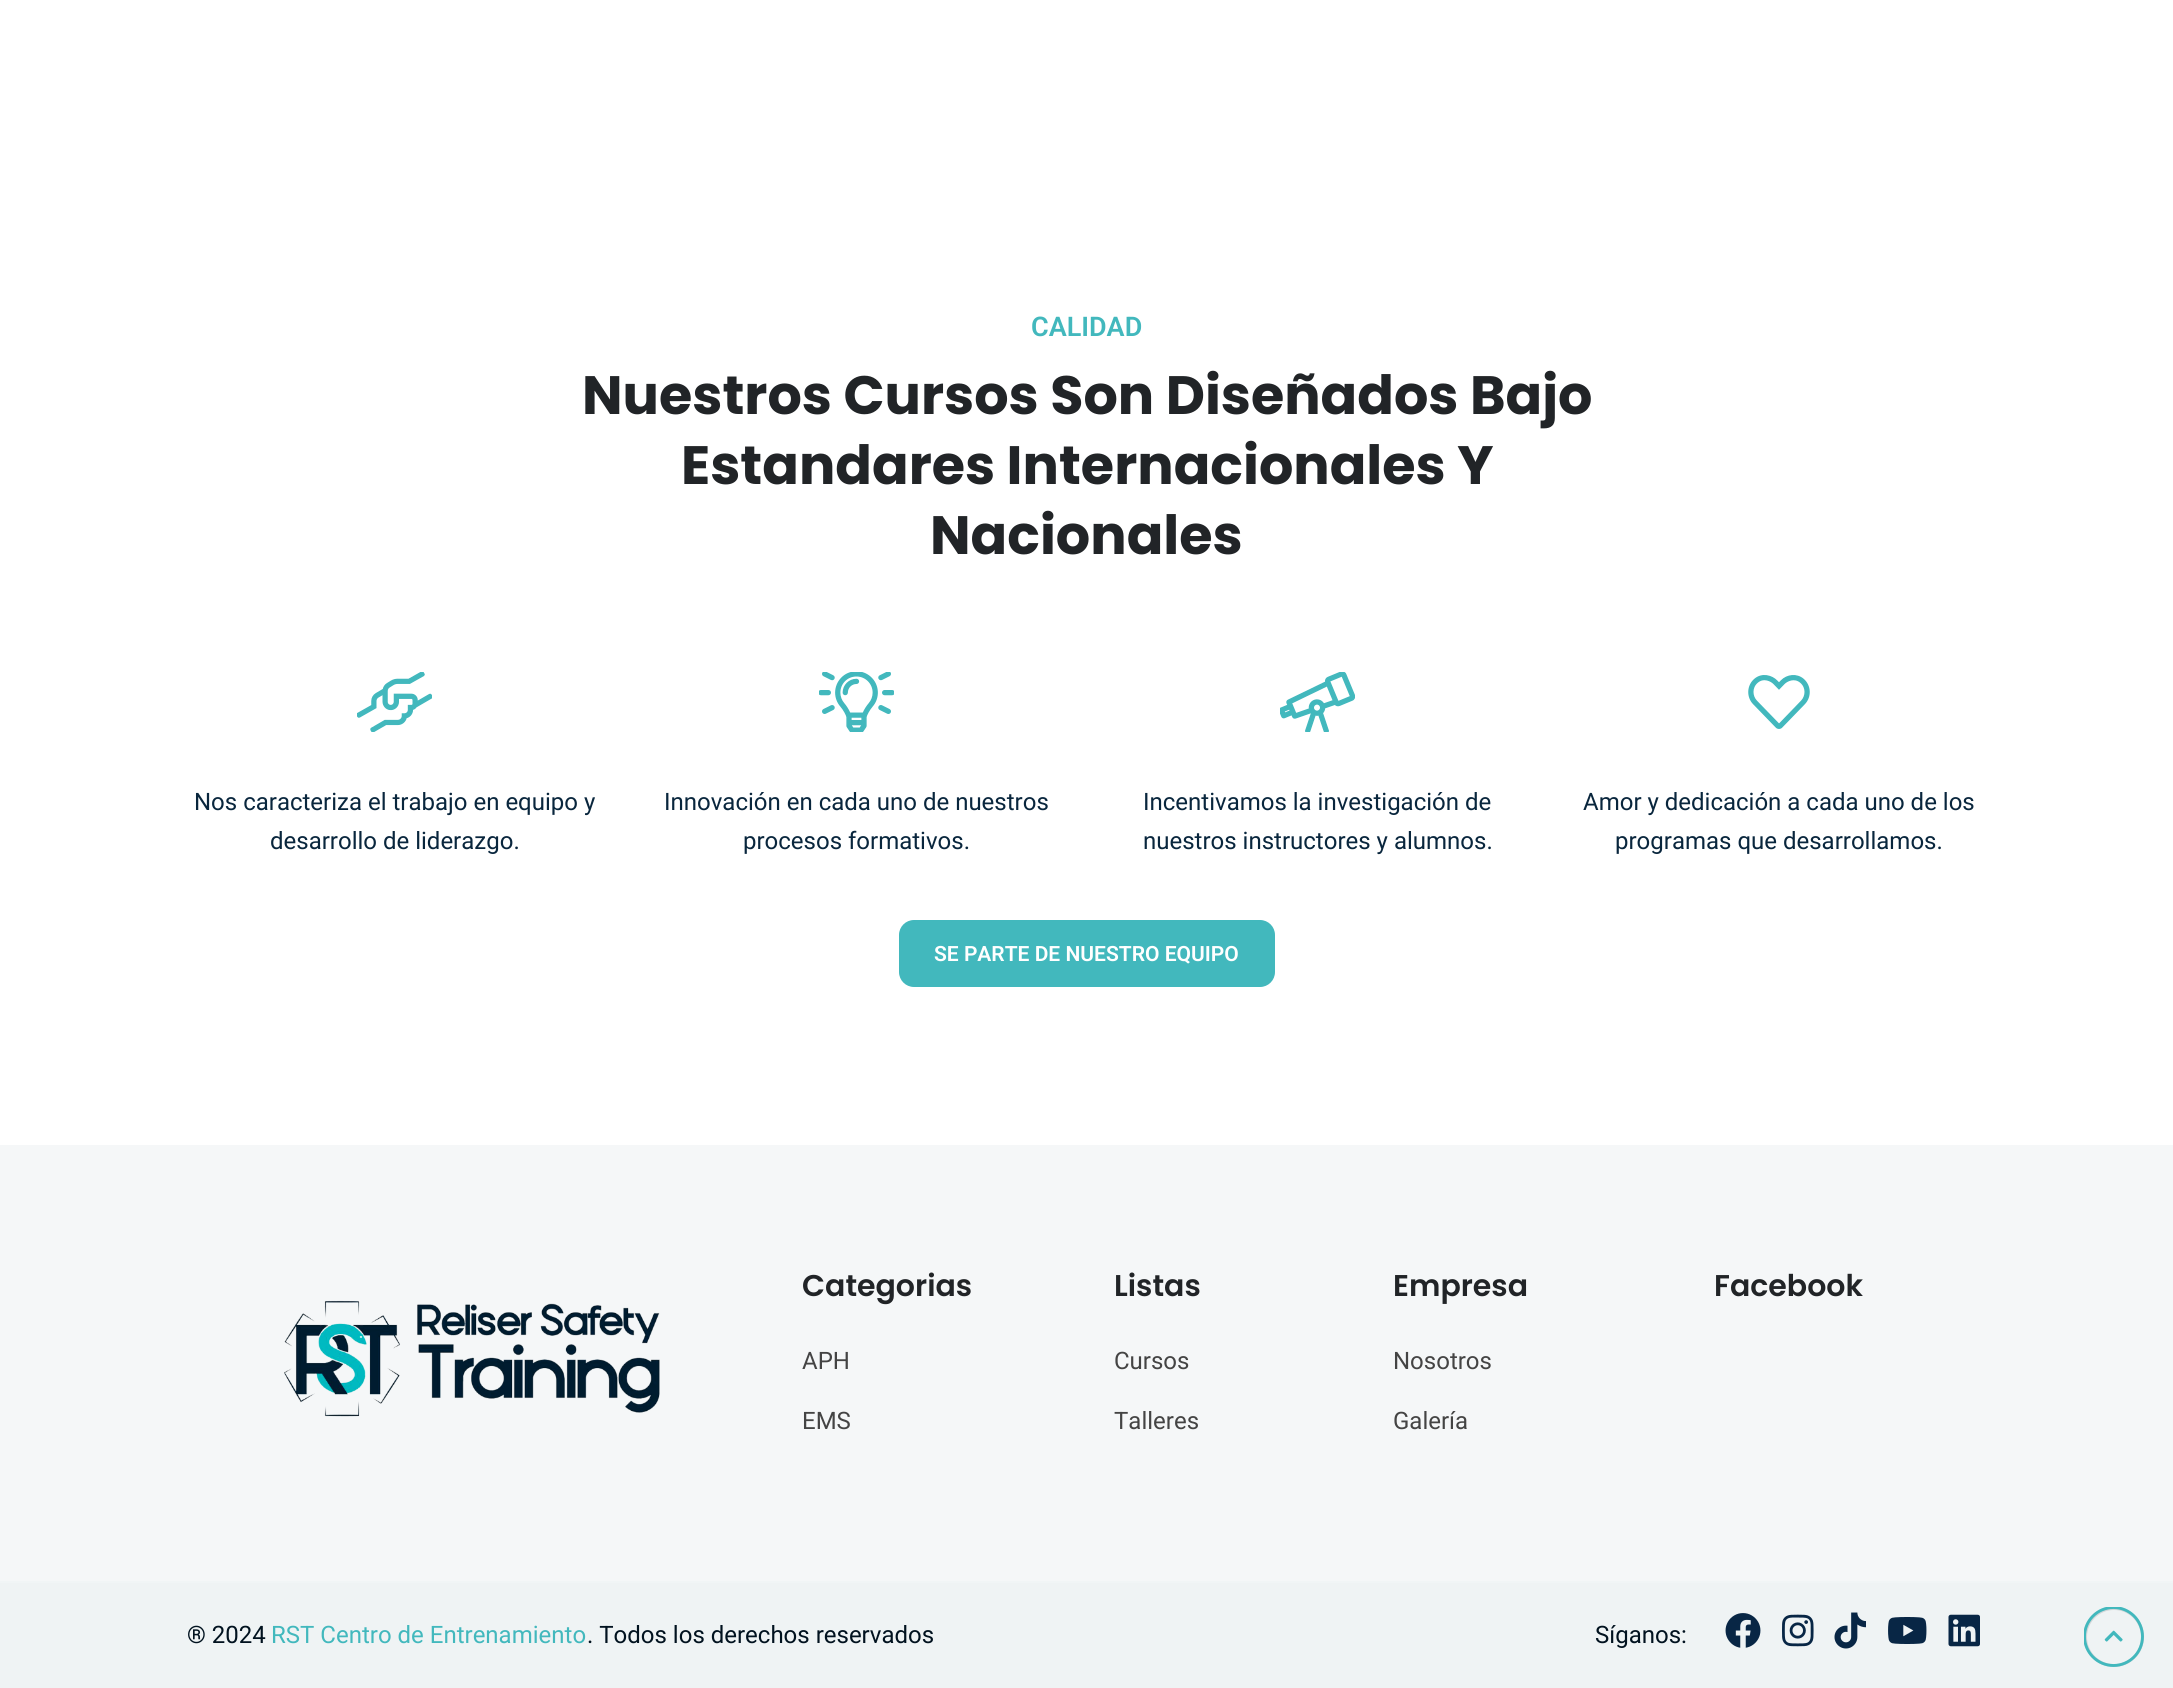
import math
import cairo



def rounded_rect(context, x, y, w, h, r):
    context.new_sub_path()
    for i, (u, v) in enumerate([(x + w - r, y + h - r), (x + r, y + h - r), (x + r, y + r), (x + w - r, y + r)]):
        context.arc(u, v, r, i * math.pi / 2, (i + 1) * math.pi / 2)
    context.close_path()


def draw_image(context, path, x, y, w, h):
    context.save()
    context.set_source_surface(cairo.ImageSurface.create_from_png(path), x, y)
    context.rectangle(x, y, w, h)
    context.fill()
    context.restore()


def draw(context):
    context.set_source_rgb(1, 1, 1)
    context.paint()
    draw_image(context, "images/1.png", 357, 672, 75, 60)
    draw_image(context, "images/2.png", 819, 672, 75, 60)
    draw_image(context, "images/3.png", 1280, 672, 75, 60)
    draw_image(context, "images/4.png", 1748, 675, 62, 54)
    context.set_source_rgb(66 / 255, 184 / 255, 189 / 255)
    rounded_rect(context, 899, 920, 376, 67, 15)
    context.fill()
    context.set_source_rgb(245 / 255, 247 / 255, 248 / 255)
    context.rectangle(0, 1145, 2173, 436)
    context.fill()
    draw_image(context, "images/5.png", 284, 1300, 376, 117)
    context.set_source_rgb(239 / 255, 243 / 255, 244 / 255)
    context.rectangle(0, 1583, 2173, 105)
    context.fill()
    context.set_source_rgb(241 / 255, 245 / 255, 246 / 255)
    context.rectangle(0, 1581, 2173, 2)
    context.fill()
    draw_image(context, "images/6.png", 1725, 1613, 36, 35)
    draw_image(context, "images/7.png", 1782, 1614, 32, 33)
    draw_image(context, "images/8.png", 1834, 1612, 32, 37)
    draw_image(context, "images/9.png", 1888, 1617, 39, 27)
    draw_image(context, "images/10.png", 1948, 1614, 32, 33)
    context.arc(2114, 1637, 28.5, 0, 2 * math.pi)
    context.set_source_rgb(211 / 255, 215 / 255, 217 / 255)
    context.set_line_width(3)
    context.stroke()
    context.save()
    context.rectangle(2084, 1607, 60, 60)
    context.clip()
    context.new_path()
    context.move_to(2113.5, 1607.5)
    context.curve_to(2129.5, 1607.5, 2142.5, 1620.5, 2142.5, 1636.5)
    context.curve_to(2142.5, 1652.5, 2129.5, 1665.5, 2113.5, 1665.5)
    context.curve_to(2097.5, 1665.5, 2084.5, 1652.5, 2084.5, 1636.5)
    context.curve_to(2084.5, 1620.5, 2097.5, 1607.5, 2113.5, 1607.5)
    context.set_source_rgb(66 / 255, 184 / 255, 189 / 255)
    context.set_line_width(2.9)
    context.stroke()
    context.restore()
    draw_image(context, "images/11.png", 2104, 1630, 19, 12)
    context.select_font_face("Roboto SemiBold")
    context.set_font_size(27)
    context.set_source_rgb(66 / 255, 184 / 255, 189 / 255)
    context.move_to(1031, 336)
    context.show_text("CALIDAD")
    context.select_font_face("Poppins", cairo.FontSlant.NORMAL, cairo.FontWeight.BOLD)
    context.set_font_size(54)
    context.set_source_rgb(33 / 255, 36 / 255, 39 / 255)
    context.move_to(582, 414)
    context.show_text("Nuestros Cursos Son Diseñados Bajo")
    context.move_to(681, 484)
    context.show_text("Estandares Internacionales Y")
    context.move_to(930, 554)
    context.show_text("Nacionales")
    context.select_font_face("Roboto")
    context.set_font_size(24)
    context.set_source_rgb(9 / 255, 38 / 255, 61 / 255)
    context.move_to(194, 810)
    context.show_text("Nos caracteriza el trabajo en equipo y")
    context.move_to(270, 849)
    context.show_text("desarrollo de liderazgo.")
    context.move_to(664, 810)
    context.show_text("Innovación en cada uno de nuestros")
    context.move_to(743, 849)
    context.show_text("procesos formativos.")
    context.move_to(1143, 810)
    context.show_text("Incentivamos la investigación de")
    context.move_to(1143, 849)
    context.show_text("nuestros instructores y alumnos.")
    context.move_to(1583, 810)
    context.show_text("Amor y dedicación a cada uno de los")
    context.move_to(1615, 849)
    context.show_text("programas que desarrollamos.")
    context.select_font_face("Roboto SemiBold")
    context.set_font_size(21)
    context.set_source_rgb(1, 1, 1)
    context.move_to(934, 961)
    context.show_text("SE PARTE DE NUESTRO EQUIPO")
    context.select_font_face("Poppins SemiBold")
    context.set_font_size(30)
    context.set_source_rgb(33 / 255, 36 / 255, 39 / 255)
    context.move_to(802, 1296)
    context.show_text("Categorias")
    context.select_font_face("Roboto")
    context.set_font_size(24)
    context.set_source_rgb(68 / 255, 68 / 255, 68 / 255)
    context.move_to(802, 1369)
    context.show_text("APH")
    context.move_to(802, 1429)
    context.show_text("EMS")
    context.select_font_face("Poppins SemiBold")
    context.set_font_size(30)
    context.set_source_rgb(33 / 255, 36 / 255, 39 / 255)
    context.move_to(1114, 1296)
    context.show_text("Listas")
    context.select_font_face("Roboto")
    context.set_font_size(24)
    context.set_source_rgb(68 / 255, 68 / 255, 68 / 255)
    context.move_to(1114, 1369)
    context.show_text("Cursos")
    context.move_to(1114, 1429)
    context.show_text("Talleres")
    context.select_font_face("Poppins SemiBold")
    context.set_font_size(30)
    context.set_source_rgb(33 / 255, 36 / 255, 39 / 255)
    context.move_to(1393, 1296)
    context.show_text("Empresa")
    context.select_font_face("Roboto")
    context.set_font_size(24)
    context.set_source_rgb(68 / 255, 68 / 255, 68 / 255)
    context.move_to(1393, 1369)
    context.show_text("Nosotros")
    context.move_to(1393, 1429)
    context.show_text("Galería")
    context.select_font_face("Poppins SemiBold")
    context.set_font_size(30)
    context.set_source_rgb(33 / 255, 36 / 255, 39 / 255)
    context.move_to(1714, 1296)
    context.show_text("Facebook")
    context.select_font_face("Roboto")
    context.set_font_size(24)
    context.set_source_rgb(1 / 255, 18 / 255, 31 / 255)
    context.move_to(187, 1643)
    context.show_text("® 2024")
    context.set_source_rgb(66 / 255, 184 / 255, 189 / 255)
    context.move_to(271, 1643)
    context.show_text("RST Centro de Entrenamiento")
    context.set_source_rgb(1 / 255, 18 / 255, 31 / 255)
    context.move_to(587, 1643)
    context.show_text(". Todos los derechos reservados")
    context.move_to(1595, 1643)
    context.show_text("Síganos:")


surface = cairo.ImageSurface(cairo.Format.RGB24, 2173, 1688)
context = cairo.Context(surface)
options = cairo.FontOptions()
options.set_hint_metrics(cairo.HintMetrics.OFF)
options.set_hint_style(cairo.HintStyle.NONE)
context.set_font_options(options)
context.set_miter_limit(4)
draw(context)
surface.write_to_png("out.png")
